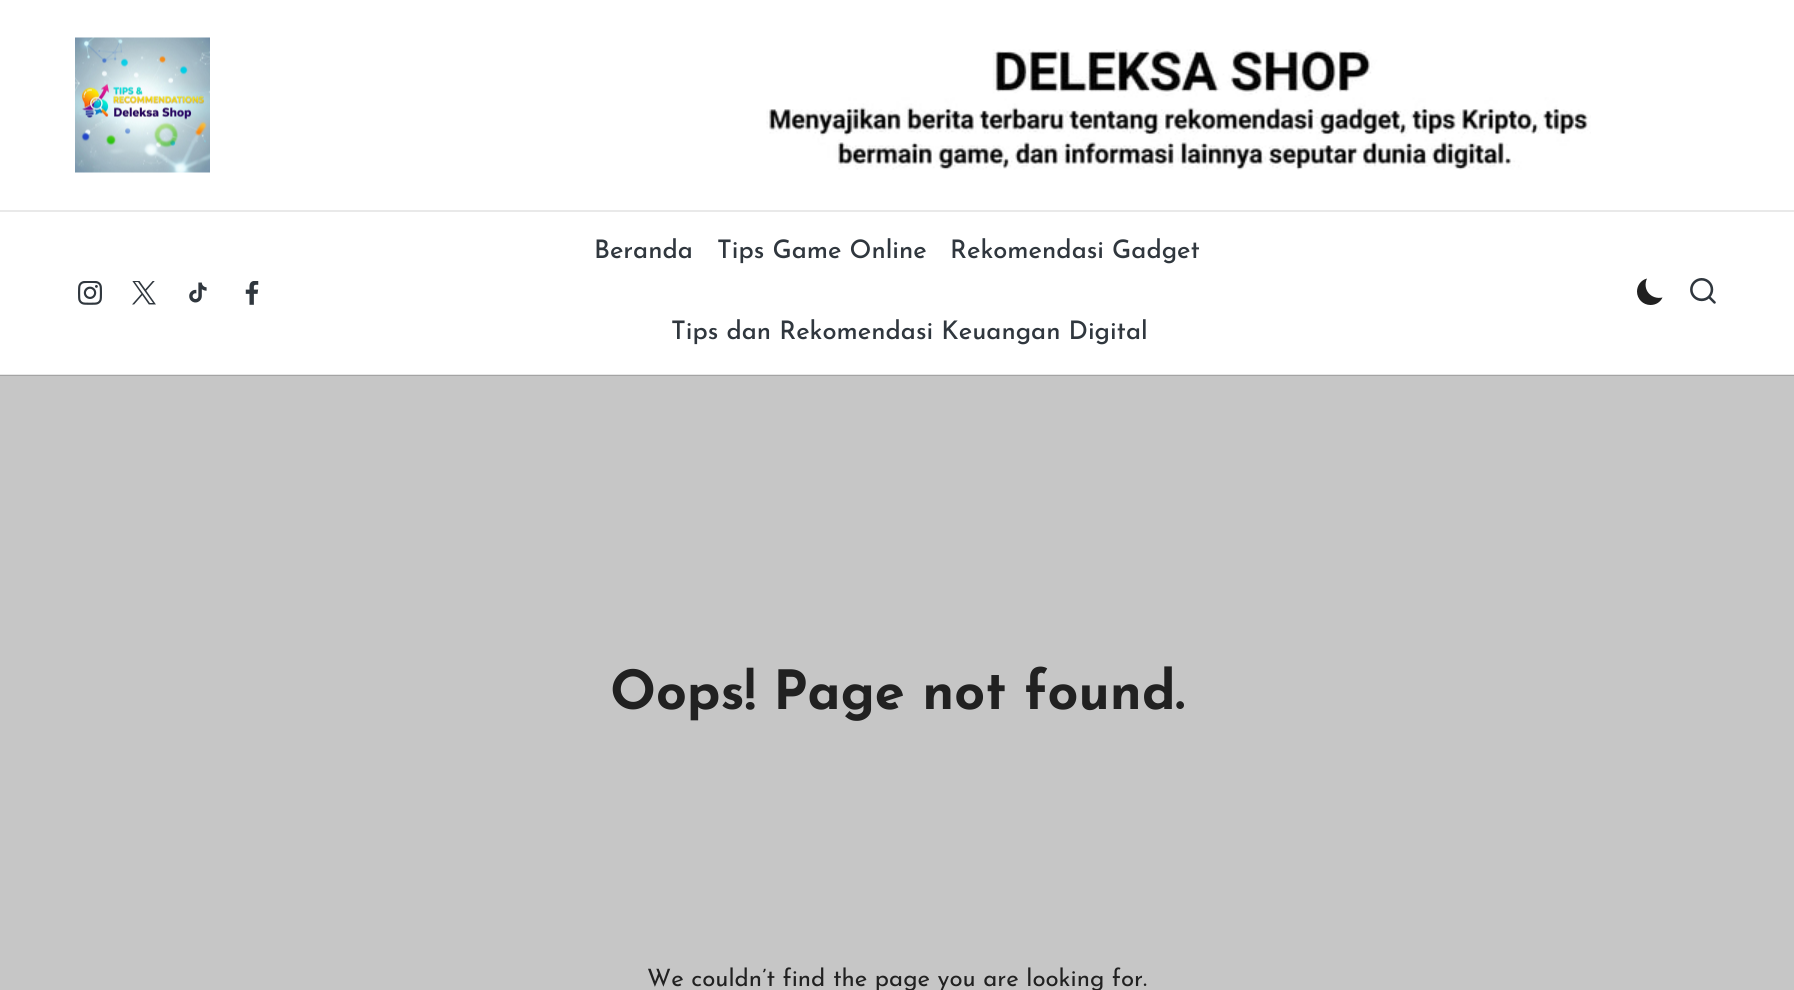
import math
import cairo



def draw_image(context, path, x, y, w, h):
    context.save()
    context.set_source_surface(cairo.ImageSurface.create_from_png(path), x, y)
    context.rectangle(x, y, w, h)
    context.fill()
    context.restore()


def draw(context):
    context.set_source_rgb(198 / 255, 198 / 255, 198 / 255)
    context.paint()
    context.set_source_rgb(164 / 255, 164 / 255, 164 / 255)
    context.rectangle(0, 375, 1794, 1)
    context.fill()
    context.set_source_rgb(1, 1, 1)
    context.rectangle(0, 0, 1794, 210)
    context.fill()
    draw_image(context, "images/1.png", 75, 37, 135, 136)
    draw_image(context, "images/2.png", 766, 49, 825, 121)
    context.rectangle(0, 212, 1794, 162)
    context.fill()
    context.set_source_rgb(232 / 255, 232 / 255, 232 / 255)
    context.rectangle(0, 374, 1794, 1)
    context.fill()
    context.set_source_rgb(233 / 255, 233 / 255, 233 / 255)
    context.rectangle(0, 210, 1794, 2)
    context.fill()
    draw_image(context, "images/3.png", 78, 281, 24, 24)
    draw_image(context, "images/4.png", 132, 281, 24, 24)
    draw_image(context, "images/5.png", 189, 282, 18, 21)
    draw_image(context, "images/6.png", 245, 281, 14, 24)
    context.set_source_rgb(33 / 255, 33 / 255, 33 / 255)
    context.new_path()
    context.move_to(1662.5, 297.5)
    context.curve_to(1651, 300, 1642, 289.5, 1647, 278.5)
    context.curve_to(1641, 280, 1637, 285.5, 1637, 291.5)
    context.curve_to(1637, 299, 1643, 305, 1650.5, 305)
    context.curve_to(1656, 305, 1660.5, 302, 1662.5, 297.5)
    context.close_path()
    context.fill()
    draw_image(context, "images/7.png", 1690, 278, 26, 26)
    context.select_font_face("Josefin Sans Medium")
    context.set_font_size(25.5)
    context.set_source_rgb(48 / 255, 55 / 255, 62 / 255)
    context.move_to(594, 258)
    context.show_text("Beranda")
    context.move_to(717, 258)
    context.show_text("Tips Game Online")
    context.move_to(950, 258)
    context.show_text("Rekomendasi Gadget")
    context.move_to(671, 339)
    context.show_text("Tips dan Rekomendasi Keuangan Digital")
    context.select_font_face("Josefin Sans", cairo.FontSlant.NORMAL, cairo.FontWeight.BOLD)
    context.set_font_size(54)
    context.set_source_rgb(33 / 255, 33 / 255, 33 / 255)
    context.move_to(610, 709)
    context.show_text("Oops! Page not found.")
    context.select_font_face("Josefin Sans")
    context.set_font_size(24)
    context.move_to(647, 986)
    context.show_text("We couldn’t find the page you are looking for.")


surface = cairo.ImageSurface(cairo.Format.RGB24, 1794, 990)
context = cairo.Context(surface)
options = cairo.FontOptions()
options.set_hint_metrics(cairo.HintMetrics.OFF)
options.set_hint_style(cairo.HintStyle.NONE)
context.set_font_options(options)
context.set_miter_limit(4)
draw(context)
surface.write_to_png("out.png")
